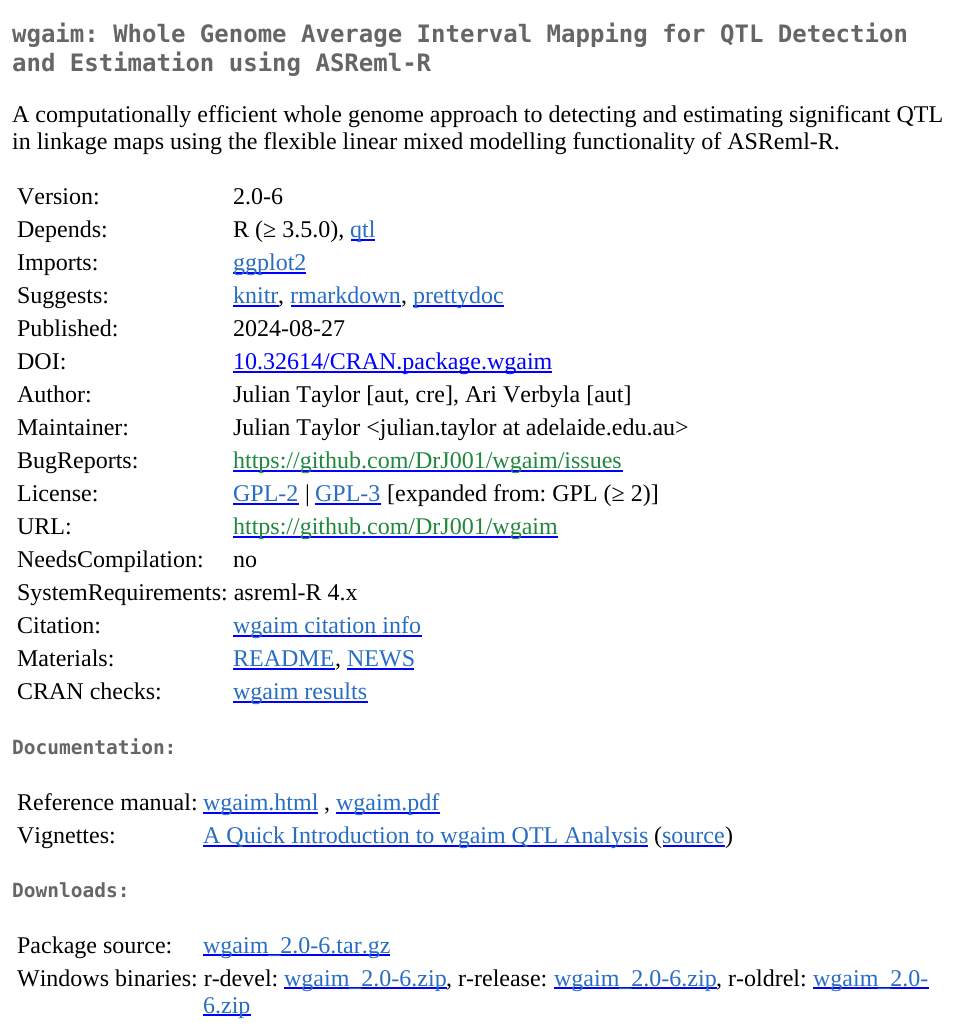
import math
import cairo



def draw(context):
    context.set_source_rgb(1, 1, 1)
    context.paint()
    context.set_source_rgb(0, 0, 1)
    context.rectangle(351, 239, 24, 2)
    context.fill()
    context.rectangle(233, 272, 73, 2)
    context.fill()
    context.rectangle(233, 305, 46, 2)
    context.fill()
    context.rectangle(291, 305, 110, 2)
    context.fill()
    context.rectangle(413, 305, 91, 2)
    context.fill()
    context.rectangle(233, 371, 319, 2)
    context.fill()
    context.rectangle(233, 470, 390, 2)
    context.fill()
    context.rectangle(233, 503, 66, 2)
    context.fill()
    context.rectangle(315, 503, 66, 2)
    context.fill()
    context.rectangle(233, 536, 325, 2)
    context.fill()
    context.rectangle(233, 635, 189, 2)
    context.fill()
    context.rectangle(233, 668, 102, 2)
    context.fill()
    context.rectangle(347, 668, 67, 2)
    context.fill()
    context.rectangle(233, 701, 135, 2)
    context.fill()
    context.rectangle(203, 812, 115, 2)
    context.fill()
    context.rectangle(336, 812, 104, 2)
    context.fill()
    context.rectangle(203, 845, 445, 2)
    context.fill()
    context.rectangle(663, 845, 62, 2)
    context.fill()
    context.rectangle(203, 954, 187, 2)
    context.fill()
    context.rectangle(284, 987, 163, 2)
    context.fill()
    context.rectangle(554, 987, 163, 2)
    context.fill()
    context.rectangle(813, 987, 116, 2)
    context.fill()
    context.rectangle(203, 1014, 48, 2)
    context.fill()
    context.select_font_face("DejaVu Sans Mono", cairo.FontSlant.NORMAL, cairo.FontWeight.BOLD)
    context.set_font_size(24)
    context.set_source_rgb(102 / 255, 102 / 255, 102 / 255)
    context.move_to(12, 42)
    context.show_text("wgaim: Whole Genome Average Interval Mapping for QTL Detection")
    context.move_to(12, 71)
    context.show_text("and Estimation using ASReml-R")
    context.select_font_face("Liberation Serif")
    context.set_source_rgb(0, 0, 0)
    context.move_to(12, 122)
    context.show_text("A computationally efficient whole genome approach to detecting and estimating significant QTL")
    context.move_to(12, 149)
    context.show_text("in linkage maps using the flexible linear mixed modelling functionality of ASReml-R.")
    context.move_to(17, 204)
    context.show_text("Version:")
    context.move_to(233, 204)
    context.show_text("2.0-6")
    context.move_to(17, 237)
    context.show_text("Depends:")
    context.move_to(233, 237)
    context.show_text("R (≥ 3.5.0),")
    context.set_source_rgb(39 / 255, 109 / 255, 195 / 255)
    context.move_to(350, 237)
    context.show_text("qtl")
    context.set_source_rgb(0, 0, 0)
    context.move_to(17, 270)
    context.show_text("Imports:")
    context.set_source_rgb(39 / 255, 109 / 255, 195 / 255)
    context.move_to(233, 270)
    context.show_text("ggplot2")
    context.set_source_rgb(0, 0, 0)
    context.move_to(17, 303)
    context.show_text("Suggests:")
    context.set_source_rgb(39 / 255, 109 / 255, 195 / 255)
    context.move_to(233, 303)
    context.show_text("knitr")
    context.set_source_rgb(0, 0, 0)
    context.move_to(278, 303)
    context.show_text(",")
    context.set_source_rgb(39 / 255, 109 / 255, 195 / 255)
    context.move_to(290, 303)
    context.show_text("rmarkdown")
    context.set_source_rgb(0, 0, 0)
    context.move_to(401, 303)
    context.show_text(",")
    context.set_source_rgb(39 / 255, 109 / 255, 195 / 255)
    context.move_to(413, 303)
    context.show_text("prettydoc")
    context.set_source_rgb(0, 0, 0)
    context.move_to(17, 336)
    context.show_text("Published:")
    context.move_to(233, 336)
    context.show_text("2024-08-27")
    context.move_to(17, 369)
    context.show_text("DOI:")
    context.set_source_rgb(0, 0, 1)
    context.move_to(233, 369)
    context.show_text("10.32614/CRAN.package.wgaim")
    context.set_source_rgb(0, 0, 0)
    context.move_to(17, 402)
    context.show_text("Author:")
    context.move_to(233, 402)
    context.show_text("Julian Taylor [aut, cre], Ari Verbyla [aut]")
    context.move_to(17, 435)
    context.show_text("Maintainer:")
    context.move_to(233, 435)
    context.show_text("Julian Taylor <julian.taylor at adelaide.edu.au>")
    context.move_to(17, 468)
    context.show_text("BugReports:")
    context.set_source_rgb(31 / 255, 136 / 255, 61 / 255)
    context.move_to(233, 468)
    context.show_text("https://github.com/DrJ001/wgaim/issues")
    context.set_source_rgb(0, 0, 0)
    context.move_to(17, 501)
    context.show_text("License:")
    context.set_source_rgb(39 / 255, 109 / 255, 195 / 255)
    context.move_to(233, 501)
    context.show_text("GPL-2")
    context.set_source_rgb(0, 0, 0)
    context.move_to(305, 501)
    context.show_text("|")
    context.set_source_rgb(39 / 255, 109 / 255, 195 / 255)
    context.move_to(315, 501)
    context.show_text("GPL-3")
    context.set_source_rgb(0, 0, 0)
    context.move_to(387, 501)
    context.show_text("[expanded from: GPL (≥ 2)]")
    context.move_to(17, 534)
    context.show_text("URL:")
    context.set_source_rgb(31 / 255, 136 / 255, 61 / 255)
    context.move_to(233, 534)
    context.show_text("https://github.com/DrJ001/wgaim")
    context.set_source_rgb(0, 0, 0)
    context.move_to(17, 567)
    context.show_text("NeedsCompilation:")
    context.move_to(233, 567)
    context.show_text("no")
    context.move_to(17, 600)
    context.show_text("SystemRequirements: asreml-R 4.x")
    context.move_to(17, 633)
    context.show_text("Citation:")
    context.set_source_rgb(39 / 255, 109 / 255, 195 / 255)
    context.move_to(233, 633)
    context.show_text("wgaim citation info")
    context.set_source_rgb(0, 0, 0)
    context.move_to(17, 666)
    context.show_text("Materials:")
    context.set_source_rgb(39 / 255, 109 / 255, 195 / 255)
    context.move_to(233, 666)
    context.show_text("README")
    context.set_source_rgb(0, 0, 0)
    context.move_to(335, 666)
    context.show_text(",")
    context.set_source_rgb(39 / 255, 109 / 255, 195 / 255)
    context.move_to(347, 666)
    context.show_text("NEWS")
    context.set_source_rgb(0, 0, 0)
    context.move_to(17, 699)
    context.show_text("CRAN checks:")
    context.set_source_rgb(39 / 255, 109 / 255, 195 / 255)
    context.move_to(233, 699)
    context.show_text("wgaim results")
    context.select_font_face("DejaVu Sans Mono", cairo.FontSlant.NORMAL, cairo.FontWeight.BOLD)
    context.set_font_size(19.5)
    context.set_source_rgb(102 / 255, 102 / 255, 102 / 255)
    context.move_to(12, 754)
    context.show_text("Documentation:")
    context.select_font_face("Liberation Serif")
    context.set_font_size(24)
    context.set_source_rgb(0, 0, 0)
    context.move_to(17, 810)
    context.show_text("Reference manual:")
    context.set_source_rgb(39 / 255, 109 / 255, 195 / 255)
    context.move_to(203, 810)
    context.show_text("wgaim.html")
    context.set_source_rgb(0, 0, 0)
    context.move_to(324, 810)
    context.show_text(",")
    context.set_source_rgb(39 / 255, 109 / 255, 195 / 255)
    context.move_to(336, 810)
    context.show_text("wgaim.pdf")
    context.set_source_rgb(0, 0, 0)
    context.move_to(17, 843)
    context.show_text("Vignettes:")
    context.set_source_rgb(39 / 255, 109 / 255, 195 / 255)
    context.move_to(203, 843)
    context.show_text("A Quick Introduction to wgaim QTL Analysis")
    context.set_source_rgb(0, 0, 0)
    context.move_to(654, 843)
    context.show_text("(")
    context.set_source_rgb(39 / 255, 109 / 255, 195 / 255)
    context.move_to(662, 843)
    context.show_text("source")
    context.set_source_rgb(0, 0, 0)
    context.move_to(725, 843)
    context.show_text(")")
    context.select_font_face("DejaVu Sans Mono", cairo.FontSlant.NORMAL, cairo.FontWeight.BOLD)
    context.set_font_size(19.5)
    context.set_source_rgb(102 / 255, 102 / 255, 102 / 255)
    context.move_to(12, 897)
    context.show_text("Downloads:")
    context.select_font_face("Liberation Serif")
    context.set_font_size(24)
    context.set_source_rgb(0, 0, 0)
    context.move_to(17, 953)
    context.show_text("Package source:")
    context.set_source_rgb(39 / 255, 109 / 255, 195 / 255)
    context.move_to(203, 953)
    context.show_text("wgaim_2.0-6.tar.gz")
    context.set_source_rgb(0, 0, 0)
    context.move_to(17, 986)
    context.show_text("Windows binaries: r-devel:")
    context.set_source_rgb(39 / 255, 109 / 255, 195 / 255)
    context.move_to(284, 986)
    context.show_text("wgaim_2.0-6.zip")
    context.set_source_rgb(0, 0, 0)
    context.move_to(446, 986)
    context.show_text(", r-release:")
    context.set_source_rgb(39 / 255, 109 / 255, 195 / 255)
    context.move_to(554, 986)
    context.show_text("wgaim_2.0-6.zip")
    context.set_source_rgb(0, 0, 0)
    context.move_to(716, 986)
    context.show_text(", r-oldrel:")
    context.set_source_rgb(39 / 255, 109 / 255, 195 / 255)
    context.move_to(813, 986)
    context.show_text("wgaim_2.0-")
    context.move_to(203, 1013)
    context.show_text("6.zip")


surface = cairo.ImageSurface(cairo.Format.RGB24, 964, 1033)
context = cairo.Context(surface)
options = cairo.FontOptions()
options.set_hint_metrics(cairo.HintMetrics.OFF)
options.set_hint_style(cairo.HintStyle.NONE)
context.set_font_options(options)
context.set_miter_limit(4)
draw(context)
surface.write_to_png("out.png")
